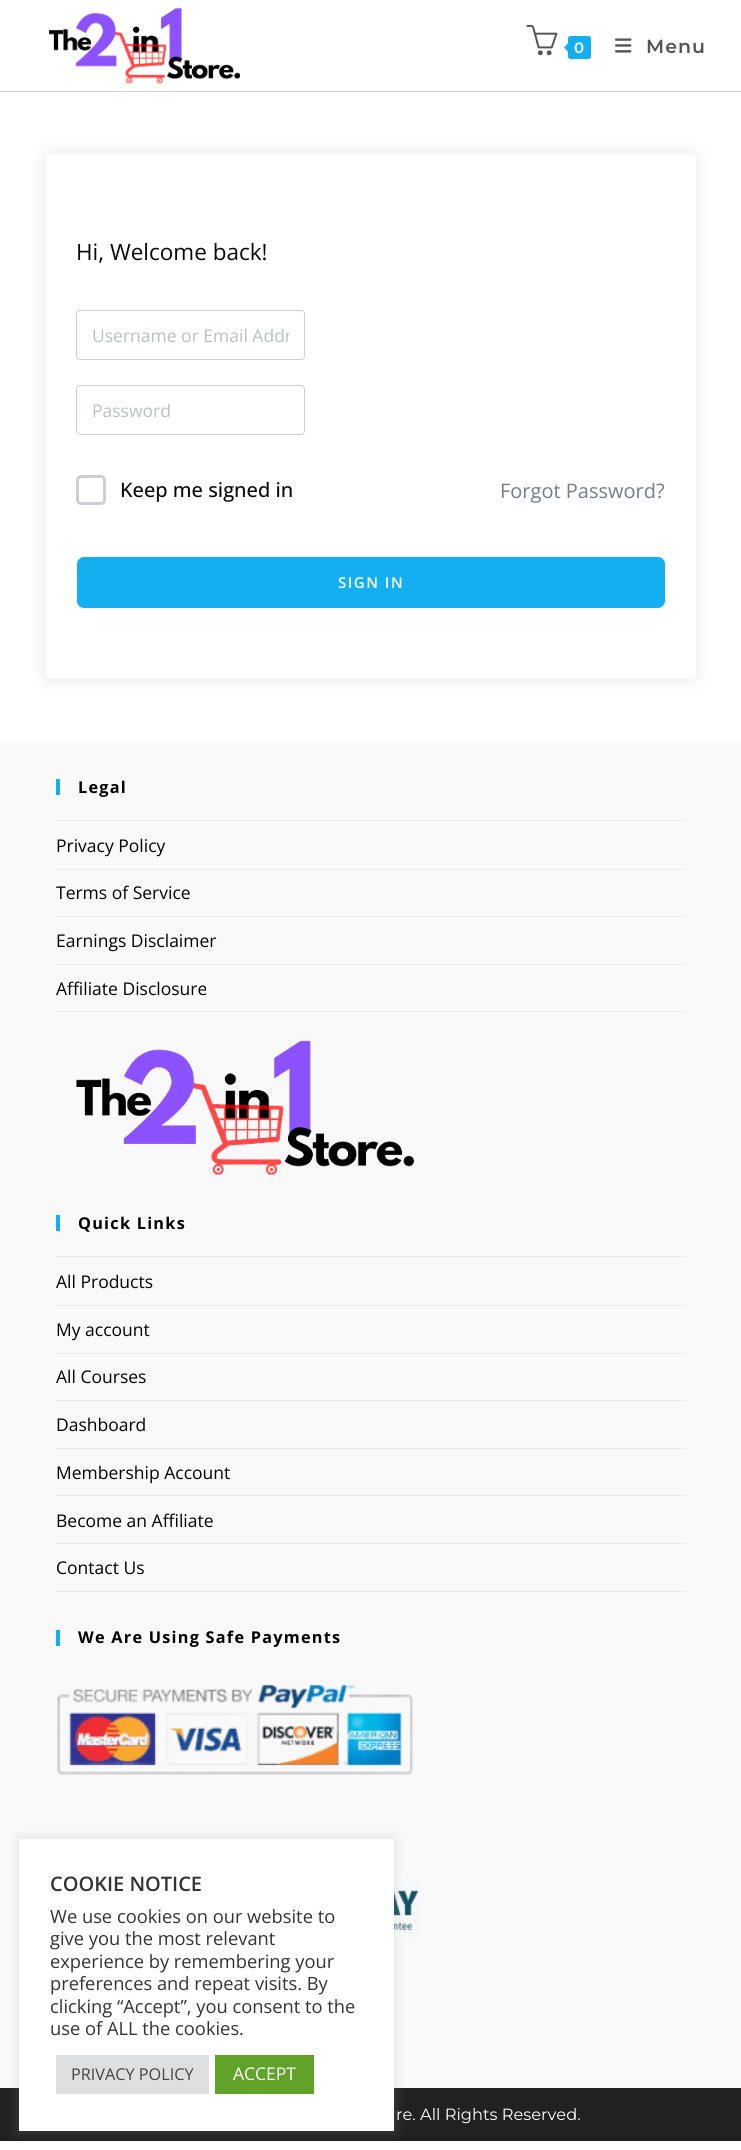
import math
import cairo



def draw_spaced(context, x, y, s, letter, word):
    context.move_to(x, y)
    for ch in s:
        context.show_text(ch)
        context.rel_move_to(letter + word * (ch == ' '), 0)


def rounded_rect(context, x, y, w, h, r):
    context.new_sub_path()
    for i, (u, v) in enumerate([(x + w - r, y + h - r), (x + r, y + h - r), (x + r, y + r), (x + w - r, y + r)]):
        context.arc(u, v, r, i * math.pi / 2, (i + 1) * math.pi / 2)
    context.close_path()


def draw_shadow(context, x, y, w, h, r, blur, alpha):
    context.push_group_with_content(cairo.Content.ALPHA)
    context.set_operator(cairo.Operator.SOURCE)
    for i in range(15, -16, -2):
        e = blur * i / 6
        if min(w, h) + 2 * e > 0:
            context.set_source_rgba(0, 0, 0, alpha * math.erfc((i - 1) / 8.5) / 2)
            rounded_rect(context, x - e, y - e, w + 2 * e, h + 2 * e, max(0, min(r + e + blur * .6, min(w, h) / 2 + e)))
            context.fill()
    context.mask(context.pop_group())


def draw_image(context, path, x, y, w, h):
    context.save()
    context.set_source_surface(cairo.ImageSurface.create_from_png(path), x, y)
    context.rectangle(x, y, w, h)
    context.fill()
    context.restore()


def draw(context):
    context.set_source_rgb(1, 1, 1)
    context.paint()
    context.set_source_rgb(209 / 255, 209 / 255, 209 / 255)
    context.rectangle(0, 91, 741, 1)
    context.fill()
    draw_image(context, "images/1.png", 48, 7, 192, 77)
    draw_image(context, "images/2.png", 526, 24, 32, 32)
    context.set_source_rgb(19 / 255, 175 / 255, 240 / 255)
    rounded_rect(context, 568, 36, 23, 23, 2.5)
    context.fill()
    context.new_path()
    context.move_to(570, 41)
    context.line_to(570, 54)
    context.line_to(564, 47.5)
    context.close_path()
    context.fill()
    draw_image(context, "images/3.png", 615, 38, 17, 15)
    context.save()
    context.set_fill_rule(cairo.FillRule.EVEN_ODD)
    context.new_path()
    context.move_to(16, 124)
    context.line_to(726, 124)
    context.line_to(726, 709)
    context.line_to(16, 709)
    context.close_path()
    context.move_to(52, 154)
    context.line_to(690, 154)
    context.curve_to(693.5, 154, 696, 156.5, 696, 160)
    context.line_to(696, 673)
    context.curve_to(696, 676.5, 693.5, 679, 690, 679)
    context.line_to(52, 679)
    context.curve_to(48.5, 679, 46, 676.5, 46, 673)
    context.line_to(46, 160)
    context.curve_to(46, 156.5, 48.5, 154, 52, 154)
    context.close_path()
    context.clip()
    context.set_source_rgb(0, 0, 0)
    draw_shadow(context, 46, 154, 650, 525, 6, 9.5, 0.1)
    context.restore()
    rounded_rect(context, 76.5, 310.5, 228, 49, 3.5)
    context.set_source_rgb(205 / 255, 207 / 255, 213 / 255)
    context.set_line_width(1)
    context.stroke()
    rounded_rect(context, 76.5, 385.5, 228, 49, 3.5)
    context.stroke()
    rounded_rect(context, 77.5, 476.5, 27, 27, 3.5)
    context.set_line_width(3)
    context.stroke()
    context.set_source_rgb(19 / 255, 175 / 255, 240 / 255)
    rounded_rect(context, 76.5, 556.5, 589, 52, 7.5)
    context.fill_preserve()
    context.set_source_rgb(1, 1, 1)
    context.set_line_width(1)
    context.stroke()
    context.set_source_rgb(249 / 255, 249 / 255, 249 / 255)
    context.rectangle(0, 741, 741, 1347)
    context.fill()
    context.set_source_rgb(19 / 255, 175 / 255, 240 / 255)
    context.rectangle(56, 779, 4, 16)
    context.fill()
    context.set_source_rgb(233 / 255, 233 / 255, 233 / 255)
    context.rectangle(56, 820, 629, 1)
    context.fill()
    context.rectangle(56, 869, 629, 1)
    context.fill()
    context.rectangle(56, 916, 629, 1)
    context.fill()
    context.rectangle(56, 964, 629, 1)
    context.fill()
    context.rectangle(56, 1011, 629, 1)
    context.fill()
    draw_image(context, "images/4.png", 76, 1040, 338, 135)
    context.set_source_rgb(19 / 255, 175 / 255, 240 / 255)
    context.rectangle(56, 1215, 4, 16)
    context.fill()
    context.set_source_rgb(233 / 255, 233 / 255, 233 / 255)
    context.rectangle(56, 1256, 629, 1)
    context.fill()
    context.rectangle(56, 1305, 629, 1)
    context.fill()
    context.rectangle(56, 1353, 629, 1)
    context.fill()
    context.rectangle(56, 1400, 629, 1)
    context.fill()
    context.rectangle(56, 1448, 629, 1)
    context.fill()
    context.rectangle(56, 1495, 629, 1)
    context.fill()
    context.rectangle(56, 1543, 629, 1)
    context.fill()
    context.rectangle(56, 1591, 629, 1)
    context.fill()
    context.set_source_rgb(19 / 255, 175 / 255, 240 / 255)
    context.rectangle(56, 1630, 4, 16)
    context.fill()
    draw_image(context, "images/5.png", 57, 1684, 356, 91)
    draw_image(context, "images/6.png", 394, 1879, 25, 60)
    context.set_source_rgb(33 / 255, 33 / 255, 33 / 255)
    context.rectangle(0, 2088, 741, 53)
    context.fill()
    context.set_source_rgb(172 / 255, 171 / 255, 171 / 255)
    draw_shadow(context, 19, 1838, 375, 292, 0, 6, 0.3)
    context.set_source_rgb(1, 1, 1)
    context.rectangle(19, 1839, 375, 292)
    context.fill()
    context.set_source_rgb(222 / 255, 223 / 255, 224 / 255)
    context.rectangle(56, 2055, 153, 39)
    context.fill()
    context.set_source_rgb(97 / 255, 162 / 255, 41 / 255)
    context.rectangle(215, 2055, 99, 39)
    context.fill()
    context.select_font_face("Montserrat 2 Thin")
    context.set_font_size(15)
    context.set_source_rgb(1, 1, 1)
    draw_spaced(context, 574, 53, "0", 1, 0)
    context.set_font_size(19)
    context.set_source_rgb(85 / 255, 85 / 255, 85 / 255)
    draw_spaced(context, 646, 53, "Menu", 1, 0)
    context.select_font_face("Open Sans")
    context.set_font_size(22.5)
    context.set_source_rgb(10 / 255, 10 / 255, 10 / 255)
    context.move_to(76, 260)
    context.show_text("Hi, Welcome back!")
    context.save()
    context.rectangle(93, 323, 196, 23)
    context.clip()
    context.set_font_size(17.5)
    context.set_source_rgb(186 / 255, 190 / 255, 199 / 255)
    context.move_to(92, 342)
    context.show_text("Username or Email Addr")
    context.restore()
    context.set_font_size(17.5)
    context.set_source_rgb(186 / 255, 190 / 255, 199 / 255)
    context.move_to(92, 417)
    context.show_text("Password")
    context.select_font_face("Open Sans Medium")
    context.set_font_size(20)
    context.set_source_rgb(10 / 255, 10 / 255, 10 / 255)
    context.move_to(120, 497)
    context.show_text("Keep me signed in")
    context.select_font_face("Open Sans")
    context.set_source_rgb(117 / 255, 124 / 255, 142 / 255)
    context.move_to(500, 498)
    context.show_text("Forgot Password?")
    context.select_font_face("Open Sans SemiBold")
    context.set_font_size(15)
    context.set_source_rgb(1, 1, 1)
    draw_spaced(context, 338, 588, "SIGN IN", 1.5, 0)
    context.select_font_face("Open Sans", cairo.FontSlant.NORMAL, cairo.FontWeight.BOLD)
    context.set_font_size(16.25)
    context.set_source_rgb(0, 0, 0)
    draw_spaced(context, 78, 793, "Legal", 1.25, 0)
    context.select_font_face("Open Sans")
    context.set_font_size(17.5)
    context.move_to(56, 852)
    context.show_text("Privacy Policy")
    context.move_to(56, 899)
    context.show_text("Terms of Service")
    context.move_to(56, 947)
    context.show_text("Earnings Disclaimer")
    context.move_to(56, 995)
    context.show_text("Affiliate Disclosure")
    context.select_font_face("Open Sans", cairo.FontSlant.NORMAL, cairo.FontWeight.BOLD)
    context.set_font_size(16.25)
    draw_spaced(context, 78, 1229, "Quick Links", 1.25, 0)
    context.select_font_face("Open Sans")
    context.set_font_size(17.5)
    context.move_to(56, 1288)
    context.show_text("All Products")
    context.move_to(56, 1336)
    context.show_text("My account")
    context.move_to(56, 1383)
    context.show_text("All Courses")
    context.move_to(56, 1431)
    context.show_text("Dashboard")
    context.move_to(56, 1479)
    context.show_text("Membership Account")
    context.move_to(56, 1527)
    context.show_text("Become an Affiliate")
    context.move_to(56, 1574)
    context.show_text("Contact Us")
    context.select_font_face("Open Sans", cairo.FontSlant.NORMAL, cairo.FontWeight.BOLD)
    context.set_font_size(16.25)
    draw_spaced(context, 78, 1643, "We Are Using Safe Payments", 1.25, 0)
    context.select_font_face("Montserrat Thin")
    context.set_source_rgb(1, 1, 1)
    context.move_to(396, 2120)
    context.show_text("re. All Rights Reserved.")
    context.select_font_face("Open Sans SemiBold")
    context.set_font_size(20)
    context.set_source_rgb(51 / 255, 51 / 255, 51 / 255)
    context.move_to(50, 1891)
    context.show_text("COOKIE NOTICE")
    context.select_font_face("Open Sans")
    context.set_font_size(18.3)
    context.move_to(50, 1923)
    context.show_text("We use cookies on our website to")
    context.move_to(50, 1945)
    context.show_text("give you the most relevant")
    context.move_to(50, 1968)
    context.show_text("experience by remembering your")
    context.move_to(50, 1990)
    context.show_text("preferences and repeat visits. By")
    context.move_to(50, 2013)
    context.show_text("clicking “Accept”, you consent to the")
    context.move_to(50, 2035)
    context.show_text("use of ALL the cookies.")
    context.set_font_size(16.25)
    context.set_source_rgb(68 / 255, 68 / 255, 68 / 255)
    context.move_to(71, 2080)
    context.show_text("PRIVACY POLICY")
    context.set_font_size(17.5)
    context.set_source_rgb(1, 1, 1)
    context.move_to(233, 2080)
    context.show_text("ACCEPT")


surface = cairo.ImageSurface(cairo.Format.RGB24, 741, 2150)
context = cairo.Context(surface)
options = cairo.FontOptions()
options.set_hint_metrics(cairo.HintMetrics.OFF)
options.set_hint_style(cairo.HintStyle.NONE)
context.set_font_options(options)
context.set_miter_limit(4)
draw(context)
surface.write_to_png("out.png")
